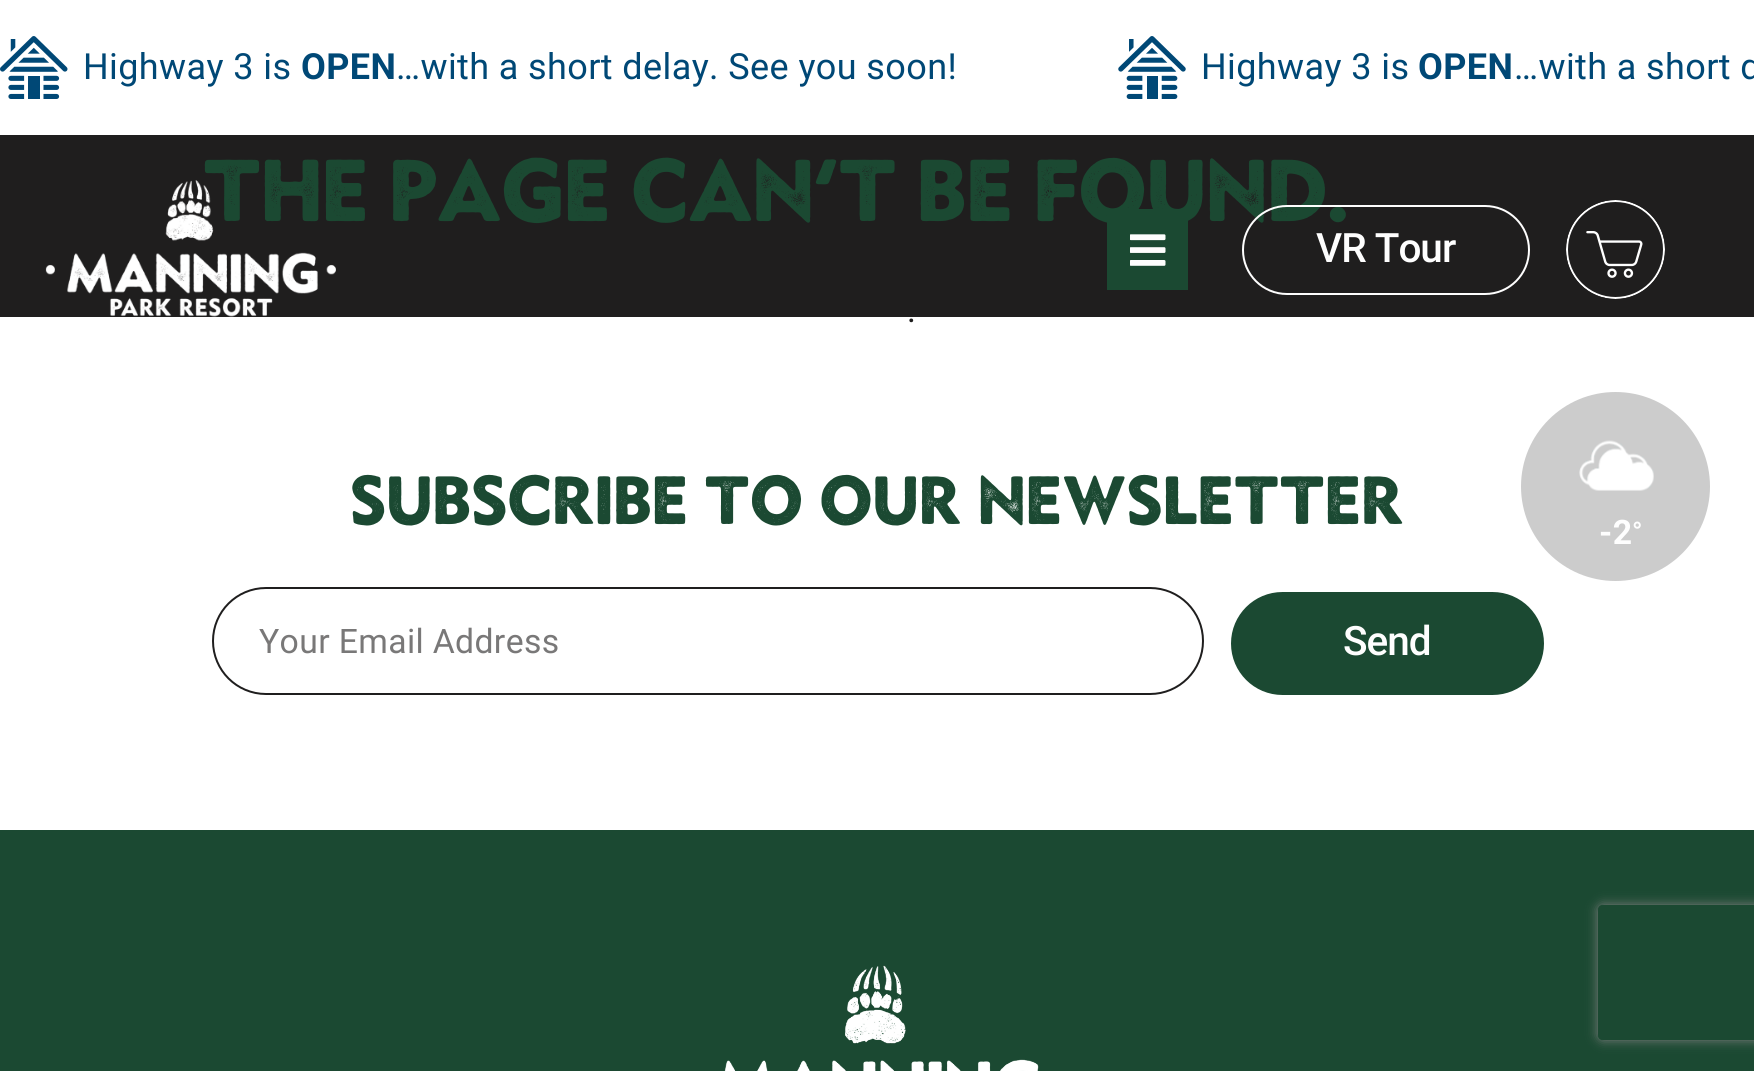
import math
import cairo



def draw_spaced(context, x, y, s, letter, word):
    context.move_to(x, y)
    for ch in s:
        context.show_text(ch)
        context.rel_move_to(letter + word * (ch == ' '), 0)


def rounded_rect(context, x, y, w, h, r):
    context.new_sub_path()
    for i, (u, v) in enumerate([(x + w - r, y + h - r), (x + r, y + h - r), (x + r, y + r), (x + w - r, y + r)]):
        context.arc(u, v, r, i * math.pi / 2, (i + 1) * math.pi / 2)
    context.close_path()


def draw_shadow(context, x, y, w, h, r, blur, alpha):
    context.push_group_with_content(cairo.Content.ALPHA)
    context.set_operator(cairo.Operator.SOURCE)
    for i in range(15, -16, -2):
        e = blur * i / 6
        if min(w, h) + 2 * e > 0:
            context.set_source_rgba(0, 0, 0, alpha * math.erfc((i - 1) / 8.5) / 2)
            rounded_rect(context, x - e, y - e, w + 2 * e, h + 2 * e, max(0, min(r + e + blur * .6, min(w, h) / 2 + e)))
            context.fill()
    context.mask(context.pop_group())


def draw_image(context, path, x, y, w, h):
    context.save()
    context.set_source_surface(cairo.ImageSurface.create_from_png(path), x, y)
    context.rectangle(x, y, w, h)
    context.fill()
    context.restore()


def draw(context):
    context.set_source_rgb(1, 1, 1)
    context.paint()
    context.set_source_rgb(31 / 255, 30 / 255, 30 / 255)
    context.rectangle(0, 135, 1754, 182)
    context.fill()
    draw_image(context, "images/1.png", 0, 36, 68, 63)
    draw_image(context, "images/2.png", 1118, 36, 68, 63)
    context.set_source_rgb(27 / 255, 73 / 255, 50 / 255)
    context.rectangle(1107, 209, 81, 81)
    context.fill()
    draw_image(context, "images/4.png", 1130, 234, 36, 32)
    draw_image(context, "images/5.png", 1566, 200, 99, 99)
    context.set_source_rgb(204 / 255, 204 / 255, 204 / 255)
    context.arc(1615.5, 486.5, 94.5, 0, 2 * math.pi)
    context.fill()
    draw_image(context, "images/6.png", 1579, 440, 75, 51)
    rounded_rect(context, 213, 588, 990, 106, 53)
    context.set_source_rgb(31 / 255, 30 / 255, 30 / 255)
    context.stroke()
    context.set_source_rgb(27 / 255, 73 / 255, 50 / 255)
    rounded_rect(context, 1232, 593, 311, 101, 50.5)
    context.fill_preserve()
    context.stroke()
    context.rectangle(0, 830, 1754, 241)
    context.fill()
    context.save()
    context.set_fill_rule(cairo.FillRule.EVEN_ODD)
    context.new_path()
    context.move_to(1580, 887)
    context.line_to(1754, 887)
    context.line_to(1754, 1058)
    context.line_to(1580, 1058)
    context.close_path()
    context.move_to(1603, 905)
    context.line_to(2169, 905)
    context.curve_to(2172, 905, 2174, 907, 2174, 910)
    context.line_to(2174, 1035)
    context.curve_to(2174, 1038, 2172, 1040, 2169, 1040)
    context.line_to(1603, 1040)
    context.curve_to(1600, 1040, 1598, 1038, 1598, 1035)
    context.line_to(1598, 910)
    context.curve_to(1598, 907, 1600, 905, 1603, 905)
    context.close_path()
    context.clip()
    context.set_source_rgb(128 / 255, 128 / 255, 128 / 255)
    draw_shadow(context, 1598, 905, 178, 135, 5, 5.5, 1)
    context.restore()
    draw_image(context, "images/7.png", 724, 965, 315, 106)
    context.select_font_face("Roboto")
    context.set_font_size(36)
    context.set_source_rgb(0, 72 / 255, 118 / 255)
    draw_spaced(context, 83, 79, "Highway 3 is", 0.4, 0)
    context.select_font_face("Roboto", cairo.FontSlant.NORMAL, cairo.FontWeight.BOLD)
    draw_spaced(context, 301, 79, "OPEN", 0.4, 0)
    context.select_font_face("Roboto")
    draw_spaced(context, 396, 79, "…with a short delay. See you soon!", 0.4, 0)
    draw_spaced(context, 1201, 79, "Highway 3 is", 0.4, 0)
    context.select_font_face("Roboto", cairo.FontSlant.NORMAL, cairo.FontWeight.BOLD)
    draw_spaced(context, 1418, 79, "OPEN", 0.4, 0)
    context.select_font_face("Roboto")
    draw_spaced(context, 1514, 79, "…with a short d", 0.4, 0)
    context.select_font_face("Roboto", cairo.FontSlant.NORMAL, cairo.FontWeight.BOLD)
    context.set_font_size(33.75)
    context.set_source_rgb(254 / 255, 254 / 255, 254 / 255)
    draw_spaced(context, 1599, 544, "-2", 0.35, 0)
    context.set_font_size(27)
    draw_spaced(context, 1632, 541, "°", 0.35, 0)
    context.select_font_face("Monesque")
    context.set_font_size(81)
    context.set_source_rgb(27 / 255, 73 / 255, 50 / 255)
    draw_spaced(context, 203, 221, "THE PAGE CAN’T BE FOUND.", 0.35, 0)
    rounded_rect(context, 1243, 206, 286, 88, 44)
    context.set_source_rgb(254 / 255, 254 / 255, 254 / 255)
    context.stroke()
    context.select_font_face("Roboto Medium")
    context.set_font_size(40.5)
    draw_spaced(context, 1316, 262, "VR Tour", -1, 0)
    draw_image(context, "images/3.png", 45, 180, 291, 137)
    context.select_font_face("Roboto")
    context.set_font_size(33.75)
    context.set_source_rgb(31 / 255, 30 / 255, 30 / 255)
    draw_spaced(context, 907, 322, ".", 0.35, 0)
    context.select_font_face("Monesque")
    context.set_font_size(63)
    context.set_source_rgb(27 / 255, 73 / 255, 50 / 255)
    draw_spaced(context, 350, 524, "SUBSCRIBE TO OUR NEWSLETTER", 0.35, 0)
    context.select_font_face("Roboto")
    context.set_font_size(33.75)
    context.set_source_rgb(121 / 255, 120 / 255, 120 / 255)
    draw_spaced(context, 259, 653, "Your Email Address", 0.35, 0)
    context.select_font_face("Roboto Medium")
    context.set_font_size(40.5)
    context.set_source_rgb(254 / 255, 254 / 255, 254 / 255)
    draw_spaced(context, 1343, 655, "Send", -1, 0)


surface = cairo.ImageSurface(cairo.Format.RGB24, 1754, 1071)
context = cairo.Context(surface)
options = cairo.FontOptions()
options.set_hint_metrics(cairo.HintMetrics.OFF)
options.set_hint_style(cairo.HintStyle.NONE)
context.set_font_options(options)
context.set_miter_limit(4)
draw(context)
surface.write_to_png("out.png")
